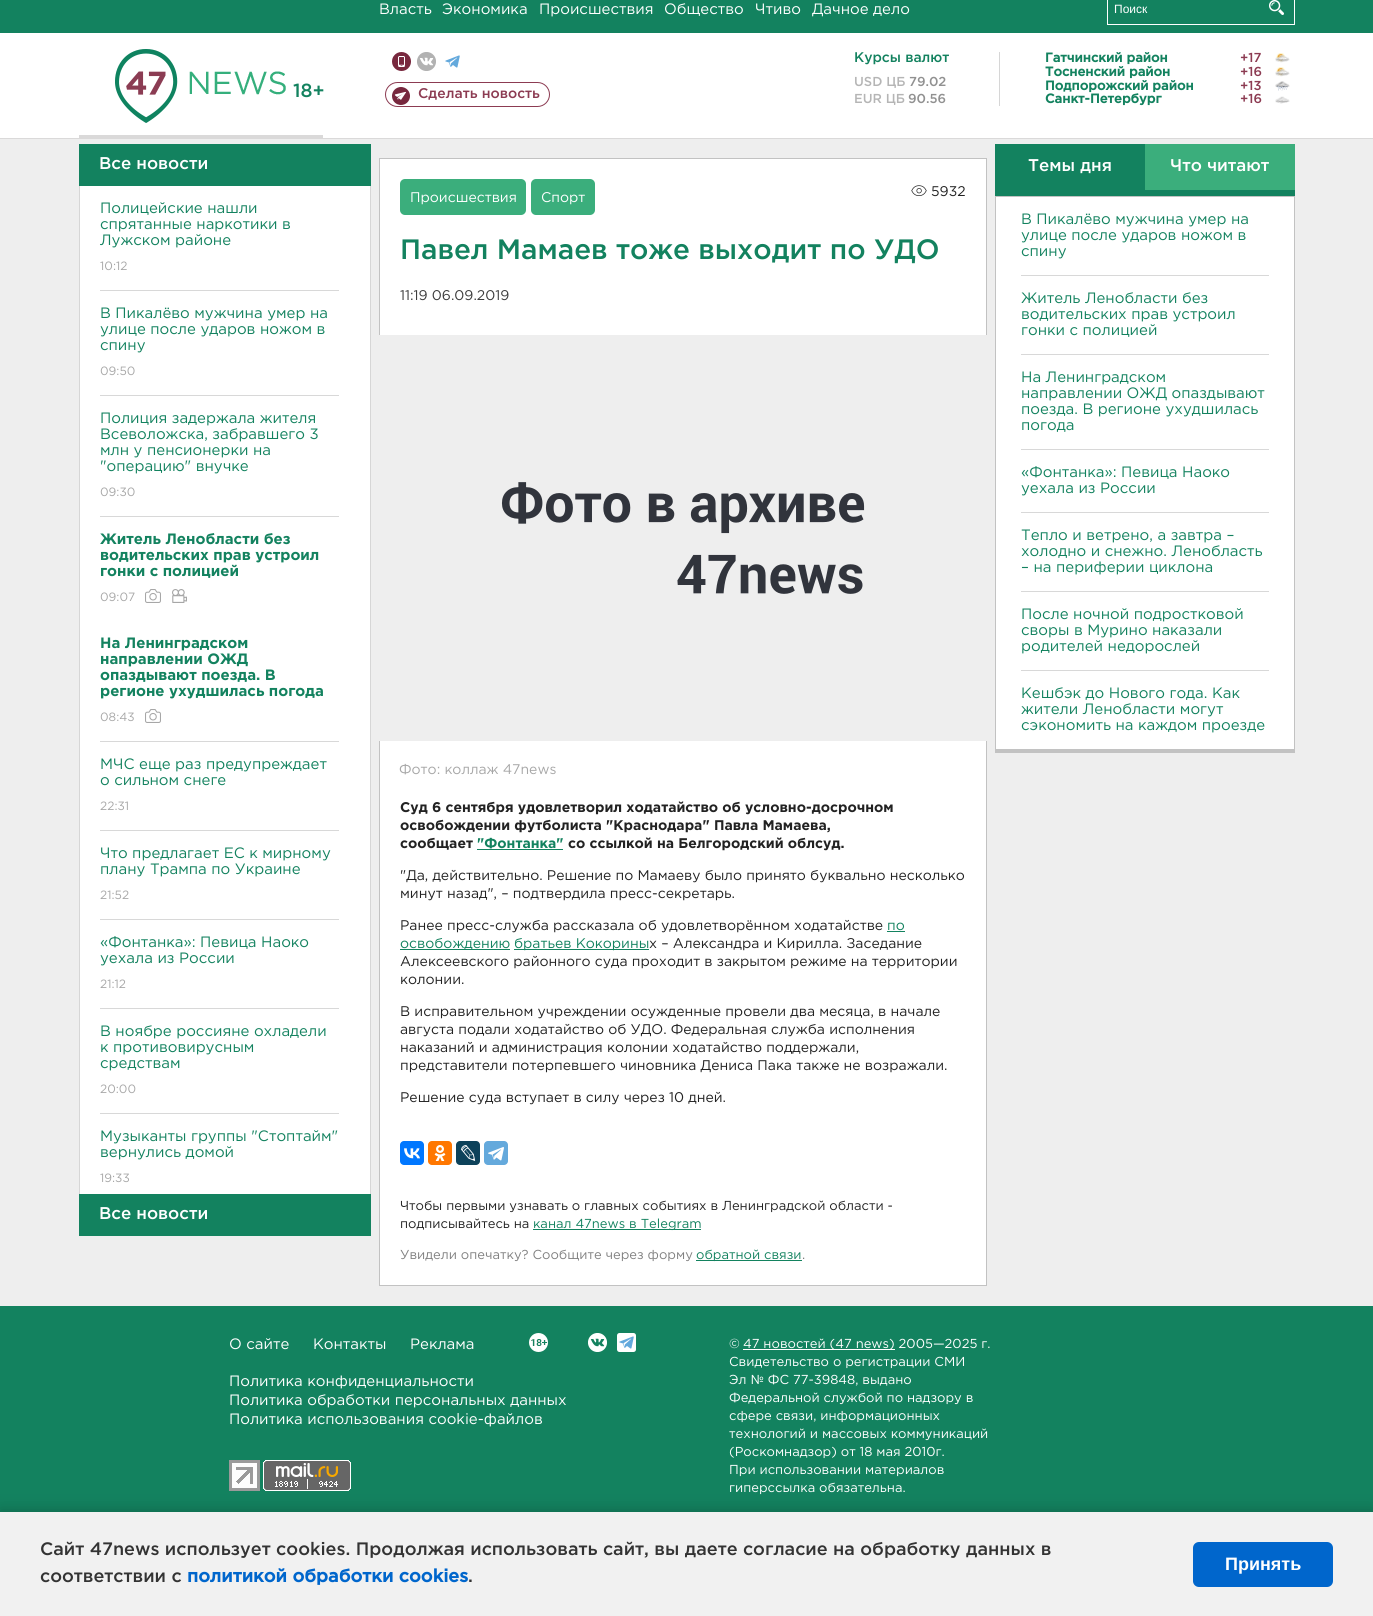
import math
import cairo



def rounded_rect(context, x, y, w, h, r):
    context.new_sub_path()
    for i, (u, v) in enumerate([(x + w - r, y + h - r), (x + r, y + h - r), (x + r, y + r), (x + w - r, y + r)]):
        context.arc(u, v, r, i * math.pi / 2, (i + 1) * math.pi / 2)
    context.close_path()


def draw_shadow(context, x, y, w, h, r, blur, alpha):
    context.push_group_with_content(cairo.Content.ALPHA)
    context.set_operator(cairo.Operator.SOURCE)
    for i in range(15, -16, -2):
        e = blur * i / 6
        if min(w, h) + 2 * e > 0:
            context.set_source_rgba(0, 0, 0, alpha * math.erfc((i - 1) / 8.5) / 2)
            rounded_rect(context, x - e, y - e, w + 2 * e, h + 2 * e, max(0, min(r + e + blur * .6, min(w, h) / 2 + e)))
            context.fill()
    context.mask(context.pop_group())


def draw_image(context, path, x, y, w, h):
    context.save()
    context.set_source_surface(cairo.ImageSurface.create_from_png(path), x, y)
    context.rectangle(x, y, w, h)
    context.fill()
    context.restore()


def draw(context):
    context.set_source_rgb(238 / 255, 238 / 255, 238 / 255)
    context.paint()
    context.set_source_rgb(19 / 255, 130 / 255, 95 / 255)
    context.rectangle(0, 0, 1373, 33)
    context.fill()
    context.rectangle(1107.5, -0.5, 187, 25)
    context.set_source_rgb(1, 1, 1)
    context.set_line_width(1)
    context.stroke()
    draw_image(context, "images/1.png", 1269, 0, 15, 15)
    context.rectangle(0, 33, 1373, 105)
    context.fill()
    context.set_source_rgb(218 / 255, 217 / 255, 217 / 255)
    context.rectangle(0, 138, 1373, 1)
    context.fill()
    context.rectangle(79, 135, 244, 3)
    context.fill()
    draw_image(context, "images/2.png", 115, 49, 171, 74)
    context.set_source_rgb(214 / 255, 214 / 255, 214 / 255)
    context.rectangle(999, 52, 1, 54)
    context.fill()
    draw_image(context, "images/3.png", 1275, 53, 15, 10)
    draw_image(context, "images/3.png", 1275, 67, 15, 10)
    draw_image(context, "images/4.png", 1275, 81, 15, 10)
    draw_image(context, "images/5.png", 1275, 96, 15, 8)
    draw_image(context, "images/6.png", 392, 52, 19, 19)
    draw_image(context, "images/7.png", 417, 52, 19, 19)
    draw_image(context, "images/8.png", 445, 55, 15, 13)
    draw_image(context, "images/9.png", 392, 87, 18, 18)
    rounded_rect(context, 385.5, 82.5, 164, 24, 12)
    context.set_source_rgb(140 / 255, 59 / 255, 82 / 255)
    context.stroke()
    context.set_source_rgb(19 / 255, 130 / 255, 95 / 255)
    context.rectangle(79, 144, 292, 42)
    context.fill()
    context.set_source_rgb(1, 1, 1)
    context.rectangle(80, 186, 290, 1008)
    context.fill()
    context.set_source_rgb(214 / 255, 214 / 255, 214 / 255)
    context.rectangle(370, 186, 1, 1008)
    context.fill()
    context.rectangle(79, 186, 1, 1008)
    context.fill()
    context.set_source_rgb(216 / 255, 216 / 255, 216 / 255)
    context.rectangle(100, 290, 239, 1)
    context.fill()
    context.rectangle(100, 395, 239, 1)
    context.fill()
    context.rectangle(100, 516, 239, 1)
    context.fill()
    draw_image(context, "images/10.png", 145, 589, 16, 14)
    draw_image(context, "images/11.png", 172, 589, 15, 14)
    context.rectangle(100, 741, 239, 1)
    context.fill()
    draw_image(context, "images/10.png", 145, 709, 16, 14)
    context.rectangle(100, 830, 239, 1)
    context.fill()
    context.rectangle(100, 919, 239, 1)
    context.fill()
    context.rectangle(100, 1008, 239, 1)
    context.fill()
    context.rectangle(100, 1113, 239, 1)
    context.fill()
    context.set_source_rgb(19 / 255, 130 / 255, 95 / 255)
    context.rectangle(79, 1194, 292, 42)
    context.fill()
    context.set_source_rgb(1, 1, 1)
    context.rectangle(379.5, 158.5, 607, 1127)
    context.fill_preserve()
    context.set_source_rgb(194 / 255, 194 / 255, 194 / 255)
    context.stroke()
    context.set_source_rgb(59 / 255, 174 / 255, 124 / 255)
    rounded_rect(context, 400, 179, 126, 36, 5)
    context.fill()
    rounded_rect(context, 531, 179, 64, 36, 5)
    context.fill()
    draw_image(context, "images/12.png", 911, 185, 16, 11)
    draw_image(context, "images/13.png", 379, 335, 608, 406)
    context.set_source_rgb(19 / 255, 130 / 255, 95 / 255)
    context.rectangle(477, 849, 86, 1)
    context.fill()
    context.rectangle(887, 931, 18, 1)
    context.fill()
    context.rectangle(400, 949, 110, 1)
    context.fill()
    context.rectangle(514, 949, 135, 1)
    context.fill()
    context.set_source_rgb(0, 119 / 255, 1)
    rounded_rect(context, 400, 1141, 24, 24, 4)
    context.fill()
    draw_image(context, "images/14.png", 404, 1148, 16, 11)
    context.set_source_rgb(1, 119 / 255, 0)
    rounded_rect(context, 428, 1141, 24, 24, 4)
    context.fill()
    draw_image(context, "images/15.png", 434, 1145, 12, 16)
    context.set_source_rgb(13 / 255, 66 / 255, 90 / 255)
    rounded_rect(context, 456, 1141, 24, 24, 4)
    context.fill()
    draw_image(context, "images/16.png", 461, 1145, 15, 16)
    context.set_source_rgb(100 / 255, 169 / 255, 220 / 255)
    rounded_rect(context, 484, 1141, 24, 24, 4)
    context.fill()
    draw_image(context, "images/17.png", 488, 1147, 16, 14)
    context.set_source_rgb(19 / 255, 130 / 255, 95 / 255)
    context.rectangle(533, 1229, 168, 1)
    context.fill()
    context.rectangle(696, 1260, 106, 1)
    context.fill()
    context.rectangle(995, 144, 300, 52)
    context.fill()
    context.set_source_rgb(59 / 255, 174 / 255, 124 / 255)
    context.rectangle(1145, 144, 150, 46)
    context.fill()
    context.set_source_rgb(1, 1, 1)
    context.rectangle(996, 197, 298, 552)
    context.fill()
    context.set_source_rgb(194 / 255, 194 / 255, 194 / 255)
    context.rectangle(995, 196, 300, 1)
    context.fill()
    context.rectangle(1294, 196, 1, 557)
    context.fill()
    context.rectangle(995, 749, 300, 4)
    context.fill()
    context.rectangle(995, 196, 1, 557)
    context.fill()
    context.set_source_rgb(216 / 255, 216 / 255, 216 / 255)
    context.rectangle(1021, 275, 248, 1)
    context.fill()
    context.rectangle(1021, 354, 248, 1)
    context.fill()
    context.rectangle(1021, 449, 248, 1)
    context.fill()
    context.rectangle(1021, 512, 248, 1)
    context.fill()
    context.rectangle(1021, 591, 248, 1)
    context.fill()
    context.rectangle(1021, 670, 248, 1)
    context.fill()
    context.set_source_rgb(19 / 255, 130 / 255, 95 / 255)
    context.rectangle(0, 1306, 1373, 206)
    context.fill()
    draw_image(context, "images/18.png", 529, 1333, 19, 19)
    draw_image(context, "images/19.png", 588, 1333, 19, 19)
    draw_image(context, "images/20.png", 617, 1333, 19, 19)
    draw_image(context, "images/21.png", 229, 1460, 31, 31)
    draw_image(context, "images/22.png", 263, 1460, 88, 31)
    context.set_source_rgb(1, 1, 1)
    context.rectangle(743, 1349, 152, 1)
    context.fill()
    context.set_source_rgb(0, 0, 0)
    draw_shadow(context, 0, 1510, 1373, 104, 0, 7.5, 0.2)
    context.set_source_rgb(241 / 255, 241 / 255, 241 / 255)
    context.rectangle(0, 1512, 1373, 104)
    context.fill()
    context.set_source_rgb(0, 102 / 255, 204 / 255)
    rounded_rect(context, 1193, 1542, 140, 45, 6)
    context.fill()
    context.select_font_face("Gotham")
    context.set_font_size(15)
    context.set_source_rgb(1, 1, 1)
    context.move_to(379, 14)
    context.show_text("Власть")
    context.move_to(442, 14)
    context.show_text("Экономика")
    context.move_to(539, 14)
    context.show_text("Происшествия")
    context.move_to(664, 14)
    context.show_text("Общество")
    context.move_to(755, 14)
    context.show_text("Чтиво")
    context.move_to(812, 14)
    context.show_text("Дачное дело")
    context.select_font_face("Liberation Sans")
    context.set_font_size(12)
    context.move_to(1114, 13)
    context.show_text("Поиск")
    context.select_font_face("Gotham Medium")
    context.set_font_size(14)
    context.set_source_rgb(19 / 255, 130 / 255, 95 / 255)
    context.move_to(854, 62)
    context.show_text("Курсы валют")
    context.set_font_size(13)
    context.set_source_rgb(181 / 255, 181 / 255, 181 / 255)
    context.move_to(854, 86)
    context.show_text("USD ЦБ")
    context.set_source_rgb(145 / 255, 145 / 255, 145 / 255)
    context.move_to(909, 86)
    context.show_text("79.02")
    context.set_source_rgb(181 / 255, 181 / 255, 181 / 255)
    context.move_to(854, 103)
    context.show_text("EUR ЦБ")
    context.set_source_rgb(145 / 255, 145 / 255, 145 / 255)
    context.move_to(908, 103)
    context.show_text("90.56")
    context.select_font_face("Gotham", cairo.FontSlant.NORMAL, cairo.FontWeight.BOLD)
    context.set_source_rgb(19 / 255, 130 / 255, 95 / 255)
    context.move_to(1045, 62)
    context.show_text("Гатчинский район")
    context.select_font_face("Gotham Medium")
    context.set_source_rgb(140 / 255, 59 / 255, 82 / 255)
    context.move_to(1240, 62)
    context.show_text("+17")
    context.select_font_face("Gotham", cairo.FontSlant.NORMAL, cairo.FontWeight.BOLD)
    context.set_source_rgb(19 / 255, 130 / 255, 95 / 255)
    context.move_to(1045, 76)
    context.show_text("Тосненский район")
    context.select_font_face("Gotham Medium")
    context.set_source_rgb(140 / 255, 59 / 255, 82 / 255)
    context.move_to(1240, 76)
    context.show_text("+16")
    context.select_font_face("Gotham", cairo.FontSlant.NORMAL, cairo.FontWeight.BOLD)
    context.set_source_rgb(19 / 255, 130 / 255, 95 / 255)
    context.move_to(1045, 90)
    context.show_text("Подпорожский район")
    context.select_font_face("Gotham Medium")
    context.set_source_rgb(140 / 255, 59 / 255, 82 / 255)
    context.move_to(1240, 90)
    context.show_text("+13")
    context.select_font_face("Gotham", cairo.FontSlant.NORMAL, cairo.FontWeight.BOLD)
    context.set_source_rgb(19 / 255, 130 / 255, 95 / 255)
    context.move_to(1045, 103)
    context.show_text("Санкт-Петербург")
    context.select_font_face("Gotham Medium")
    context.set_source_rgb(140 / 255, 59 / 255, 82 / 255)
    context.move_to(1240, 103)
    context.show_text("+16")
    context.set_font_size(19)
    context.set_source_rgb(19 / 255, 130 / 255, 95 / 255)
    context.move_to(293, 97)
    context.show_text("18+")
    context.set_font_size(14)
    context.set_source_rgb(140 / 255, 59 / 255, 82 / 255)
    context.move_to(418, 98)
    context.show_text("Сделать новость")
    context.set_font_size(17)
    context.set_source_rgb(1, 1, 1)
    context.move_to(99, 169)
    context.show_text("Все новости")
    context.select_font_face("Gotham")
    context.set_font_size(15)
    context.set_source_rgb(19 / 255, 130 / 255, 95 / 255)
    context.move_to(100, 213)
    context.show_text("Полицейские нашли")
    context.move_to(100, 229)
    context.show_text("спрятанные наркотики в")
    context.move_to(100, 245)
    context.show_text("Лужском районе")
    context.set_font_size(12)
    context.set_source_rgb(167 / 255, 167 / 255, 167 / 255)
    context.move_to(100, 270)
    context.show_text("10:12")
    context.set_font_size(15)
    context.set_source_rgb(19 / 255, 130 / 255, 95 / 255)
    context.move_to(100, 318)
    context.show_text("В Пикалёво мужчина умер на")
    context.move_to(100, 334)
    context.show_text("улице после ударов ножом в")
    context.move_to(100, 350)
    context.show_text("спину")
    context.set_font_size(12)
    context.set_source_rgb(167 / 255, 167 / 255, 167 / 255)
    context.move_to(100, 375)
    context.show_text("09:50")
    context.set_font_size(15)
    context.set_source_rgb(19 / 255, 130 / 255, 95 / 255)
    context.move_to(100, 423)
    context.show_text("Полиция задержала жителя")
    context.move_to(100, 439)
    context.show_text("Всеволожска, забравшего 3")
    context.move_to(100, 455)
    context.show_text("млн у пенсионерки на")
    context.move_to(100, 471)
    context.show_text("\"операцию\" внучке")
    context.set_font_size(12)
    context.set_source_rgb(167 / 255, 167 / 255, 167 / 255)
    context.move_to(100, 496)
    context.show_text("09:30")
    context.select_font_face("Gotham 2", cairo.FontSlant.NORMAL, cairo.FontWeight.BOLD)
    context.set_font_size(15)
    context.set_source_rgb(19 / 255, 130 / 255, 95 / 255)
    context.move_to(100, 544)
    context.show_text("Житель Ленобласти без")
    context.move_to(100, 560)
    context.show_text("водительских прав устроил")
    context.move_to(100, 576)
    context.show_text("гонки с полицией")
    context.select_font_face("Gotham")
    context.set_font_size(12)
    context.set_source_rgb(167 / 255, 167 / 255, 167 / 255)
    context.move_to(100, 601)
    context.show_text("09:07")
    context.select_font_face("Gotham 2", cairo.FontSlant.NORMAL, cairo.FontWeight.BOLD)
    context.set_font_size(15)
    context.set_source_rgb(19 / 255, 130 / 255, 95 / 255)
    context.move_to(100, 648)
    context.show_text("На Ленинградском")
    context.move_to(100, 664)
    context.show_text("направлении ОЖД")
    context.move_to(100, 680)
    context.show_text("опаздывают поезда. В")
    context.move_to(100, 696)
    context.show_text("регионе ухудшилась погода")
    context.select_font_face("Gotham")
    context.set_font_size(12)
    context.set_source_rgb(167 / 255, 167 / 255, 167 / 255)
    context.move_to(100, 721)
    context.show_text("08:43")
    context.set_font_size(15)
    context.set_source_rgb(19 / 255, 130 / 255, 95 / 255)
    context.move_to(100, 769)
    context.show_text("МЧС еще раз предупреждает")
    context.move_to(100, 785)
    context.show_text("о сильном снеге")
    context.set_font_size(12)
    context.set_source_rgb(167 / 255, 167 / 255, 167 / 255)
    context.move_to(100, 810)
    context.show_text("22:31")
    context.set_font_size(15)
    context.set_source_rgb(19 / 255, 130 / 255, 95 / 255)
    context.move_to(100, 858)
    context.show_text("Что предлагает ЕС к мирному")
    context.move_to(100, 874)
    context.show_text("плану Трампа по Украине")
    context.set_font_size(12)
    context.set_source_rgb(167 / 255, 167 / 255, 167 / 255)
    context.move_to(100, 899)
    context.show_text("21:52")
    context.set_font_size(15)
    context.set_source_rgb(19 / 255, 130 / 255, 95 / 255)
    context.move_to(100, 947)
    context.show_text("«Фонтанка»: Певица Наоко")
    context.move_to(100, 963)
    context.show_text("уехала из России")
    context.set_font_size(12)
    context.set_source_rgb(167 / 255, 167 / 255, 167 / 255)
    context.move_to(100, 988)
    context.show_text("21:12")
    context.set_font_size(15)
    context.set_source_rgb(19 / 255, 130 / 255, 95 / 255)
    context.move_to(100, 1036)
    context.show_text("B ноябре россияне охладели")
    context.move_to(100, 1052)
    context.show_text("к противовирусным")
    context.move_to(100, 1068)
    context.show_text("средствам")
    context.set_font_size(12)
    context.set_source_rgb(167 / 255, 167 / 255, 167 / 255)
    context.move_to(100, 1093)
    context.show_text("20:00")
    context.set_font_size(15)
    context.set_source_rgb(19 / 255, 130 / 255, 95 / 255)
    context.move_to(100, 1141)
    context.show_text("Музыканты группы \"Стоптайм\"")
    context.move_to(100, 1157)
    context.show_text("вернулись домой")
    context.set_font_size(12)
    context.set_source_rgb(167 / 255, 167 / 255, 167 / 255)
    context.move_to(100, 1182)
    context.show_text("19:33")
    context.select_font_face("Gotham Medium")
    context.set_font_size(17)
    context.set_source_rgb(1, 1, 1)
    context.move_to(99, 1219)
    context.show_text("Все новости")
    context.select_font_face("Gotham")
    context.set_font_size(14)
    context.move_to(410, 202)
    context.show_text("Происшествия")
    context.move_to(541, 202)
    context.show_text("Спорт")
    context.set_source_rgb(34 / 255, 34 / 255, 34 / 255)
    context.move_to(931, 196)
    context.show_text("5932")
    context.select_font_face("Gotham Medium")
    context.set_font_size(28)
    context.set_source_rgb(19 / 255, 130 / 255, 95 / 255)
    context.move_to(400, 259)
    context.show_text("Павел Мамаев тоже выходит по УДО")
    context.select_font_face("Gotham")
    context.set_font_size(14)
    context.set_source_rgb(60 / 255, 60 / 255, 60 / 255)
    context.move_to(400, 300)
    context.show_text("11:19 06.09.2019")
    context.set_source_rgb(167 / 255, 167 / 255, 167 / 255)
    context.move_to(399, 774)
    context.show_text("Фото: коллаж 47news")
    context.select_font_face("Gotham 2", cairo.FontSlant.NORMAL, cairo.FontWeight.BOLD)
    context.set_source_rgb(34 / 255, 34 / 255, 34 / 255)
    context.move_to(400, 812)
    context.show_text("Суд 6 сентября удовлетворил ходатайство об условно-досрочном")
    context.move_to(400, 830)
    context.show_text("освобождении футболиста \"Краснодара\" Павла Мамаева,")
    context.move_to(400, 848)
    context.show_text("сообщает")
    context.set_source_rgb(19 / 255, 130 / 255, 95 / 255)
    context.move_to(477, 848)
    context.show_text("\"Фонтанка\"")
    context.set_source_rgb(34 / 255, 34 / 255, 34 / 255)
    context.move_to(568, 848)
    context.show_text("со ссылкой на Белгородский облсуд.")
    context.select_font_face("Gotham")
    context.move_to(400, 880)
    context.show_text("\"Да, действительно. Решение по Мамаеву было принято буквально несколько")
    context.move_to(400, 898)
    context.show_text("минут назад\", – подтвердила пресс-секретарь.")
    context.move_to(400, 930)
    context.show_text("Ранее пресс-служба рассказала об удовлетворённом ходатайстве")
    context.set_source_rgb(19 / 255, 130 / 255, 95 / 255)
    context.move_to(887, 930)
    context.show_text("по")
    context.move_to(400, 948)
    context.show_text("освобождению")
    context.move_to(514, 948)
    context.show_text("братьев Кокорины")
    context.set_source_rgb(34 / 255, 34 / 255, 34 / 255)
    context.move_to(649, 948)
    context.show_text("х – Александра и Кирилла. Заседание")
    context.move_to(400, 966)
    context.show_text("Алексеевского районного суда проходит в закрытом режиме на территории")
    context.move_to(400, 984)
    context.show_text("колонии.")
    context.move_to(400, 1016)
    context.show_text("В исправительном учреждении осужденные провели два месяца, в начале")
    context.move_to(400, 1034)
    context.show_text("августа подали ходатайство об УДО. Федеральная служба исполнения")
    context.move_to(400, 1052)
    context.show_text("наказаний и администрация колонии ходатайство поддержали,")
    context.move_to(400, 1070)
    context.show_text("представители потерпевшего чиновника Дениса Пака также не возражали.")
    context.move_to(400, 1102)
    context.show_text("Решение суда вступает в силу через 10 дней.")
    context.set_font_size(13)
    context.move_to(400, 1210)
    context.show_text("Чтобы первыми узнавать о главных событиях в Ленинградской области -")
    context.move_to(400, 1228)
    context.show_text("подписывайтесь на")
    context.set_source_rgb(19 / 255, 130 / 255, 95 / 255)
    context.move_to(533, 1228)
    context.show_text("канал 47news в Telegram")
    context.set_source_rgb(128 / 255, 128 / 255, 128 / 255)
    context.move_to(400, 1259)
    context.show_text("Увидели опечатку? Сообщите через форму")
    context.set_source_rgb(19 / 255, 130 / 255, 95 / 255)
    context.move_to(696, 1259)
    context.show_text("обратной связи")
    context.set_source_rgb(128 / 255, 128 / 255, 128 / 255)
    context.move_to(802, 1259)
    context.show_text(".")
    context.select_font_face("Gotham Medium")
    context.set_font_size(17)
    context.set_source_rgb(1, 1, 1)
    context.move_to(1028, 171)
    context.show_text("Темы дня")
    context.move_to(1170, 171)
    context.show_text("Что читают")
    context.select_font_face("Gotham")
    context.set_font_size(15)
    context.set_source_rgb(19 / 255, 130 / 255, 95 / 255)
    context.move_to(1021, 224)
    context.show_text("В Пикалёво мужчина умер на")
    context.move_to(1021, 240)
    context.show_text("улице после ударов ножом в")
    context.move_to(1021, 256)
    context.show_text("спину")
    context.move_to(1021, 303)
    context.show_text("Житель Ленобласти без")
    context.move_to(1021, 319)
    context.show_text("водительских прав устроил")
    context.move_to(1021, 335)
    context.show_text("гонки с полицией")
    context.move_to(1021, 382)
    context.show_text("На Ленинградском")
    context.move_to(1021, 398)
    context.show_text("направлении ОЖД опаздывают")
    context.move_to(1021, 414)
    context.show_text("поезда. В регионе ухудшилась")
    context.move_to(1021, 430)
    context.show_text("погода")
    context.move_to(1021, 477)
    context.show_text("«Фонтанка»: Певица Наоко")
    context.move_to(1021, 493)
    context.show_text("уехала из России")
    context.move_to(1021, 540)
    context.show_text("Тепло и ветрено, а завтра –")
    context.move_to(1021, 556)
    context.show_text("холодно и снежно. Ленобласть")
    context.move_to(1021, 572)
    context.show_text("– на периферии циклона")
    context.move_to(1021, 619)
    context.show_text("После ночной подростковой")
    context.move_to(1021, 635)
    context.show_text("своры в Мурино наказали")
    context.move_to(1021, 651)
    context.show_text("родителей недорослей")
    context.move_to(1021, 698)
    context.show_text("Кешбэк до Нового года. Как")
    context.move_to(1021, 714)
    context.show_text("жители Ленобласти могут")
    context.move_to(1021, 730)
    context.show_text("сэкономить на каждом проезде")
    context.set_source_rgb(1, 1, 1)
    context.move_to(229, 1349)
    context.show_text("О сайте")
    context.move_to(313, 1349)
    context.show_text("Контакты")
    context.move_to(410, 1349)
    context.show_text("Реклама")
    context.move_to(229, 1386)
    context.show_text("Политика конфиденциальности")
    context.move_to(229, 1405)
    context.show_text("Политика обработки персональных данных")
    context.move_to(229, 1424)
    context.show_text("Политика использования cookie-файлов")
    context.set_font_size(13)
    context.move_to(729, 1348)
    context.show_text("©")
    context.move_to(743, 1348)
    context.show_text("47 новостей (47 news) 2005—2025 г.")
    context.move_to(729, 1366)
    context.show_text("Свидетельство о регистрации СМИ")
    context.move_to(729, 1384)
    context.show_text("Эл № ФС 77-39848, выдано")
    context.move_to(729, 1402)
    context.show_text("Федеральной службой по надзору в")
    context.move_to(729, 1420)
    context.show_text("сфере связи, информационных")
    context.move_to(729, 1438)
    context.show_text("технологий и массовых коммуникаций")
    context.move_to(729, 1456)
    context.show_text("(Роскомнадзор) от 18 мая 2010г.")
    context.move_to(729, 1474)
    context.show_text("При использовании материалов")
    context.move_to(729, 1492)
    context.show_text("гиперссылка обязательна.")
    context.select_font_face("Gotham Medium")
    context.set_font_size(18)
    context.set_source_rgb(51 / 255, 51 / 255, 51 / 255)
    context.move_to(40, 1555)
    context.show_text("Сайт 47news использует cookies. Продолжая использовать сайт, вы даете согласие на обработку данных в")
    context.move_to(40, 1582)
    context.show_text("соответствии с")
    context.select_font_face("Gotham", cairo.FontSlant.NORMAL, cairo.FontWeight.BOLD)
    context.set_source_rgb(0, 102 / 255, 204 / 255)
    context.move_to(187, 1582)
    context.show_text("политикой обработки cookies")
    context.select_font_face("Gotham Medium")
    context.set_source_rgb(51 / 255, 51 / 255, 51 / 255)
    context.move_to(468, 1582)
    context.show_text(".")
    context.select_font_face("Liberation Sans", cairo.FontSlant.NORMAL, cairo.FontWeight.BOLD)
    context.set_source_rgb(1, 1, 1)
    context.move_to(1225, 1570)
    context.show_text("Принять")


surface = cairo.ImageSurface(cairo.Format.RGB24, 1373, 1616)
context = cairo.Context(surface)
options = cairo.FontOptions()
options.set_hint_metrics(cairo.HintMetrics.OFF)
options.set_hint_style(cairo.HintStyle.NONE)
context.set_font_options(options)
context.set_miter_limit(4)
draw(context)
surface.write_to_png("out.png")
